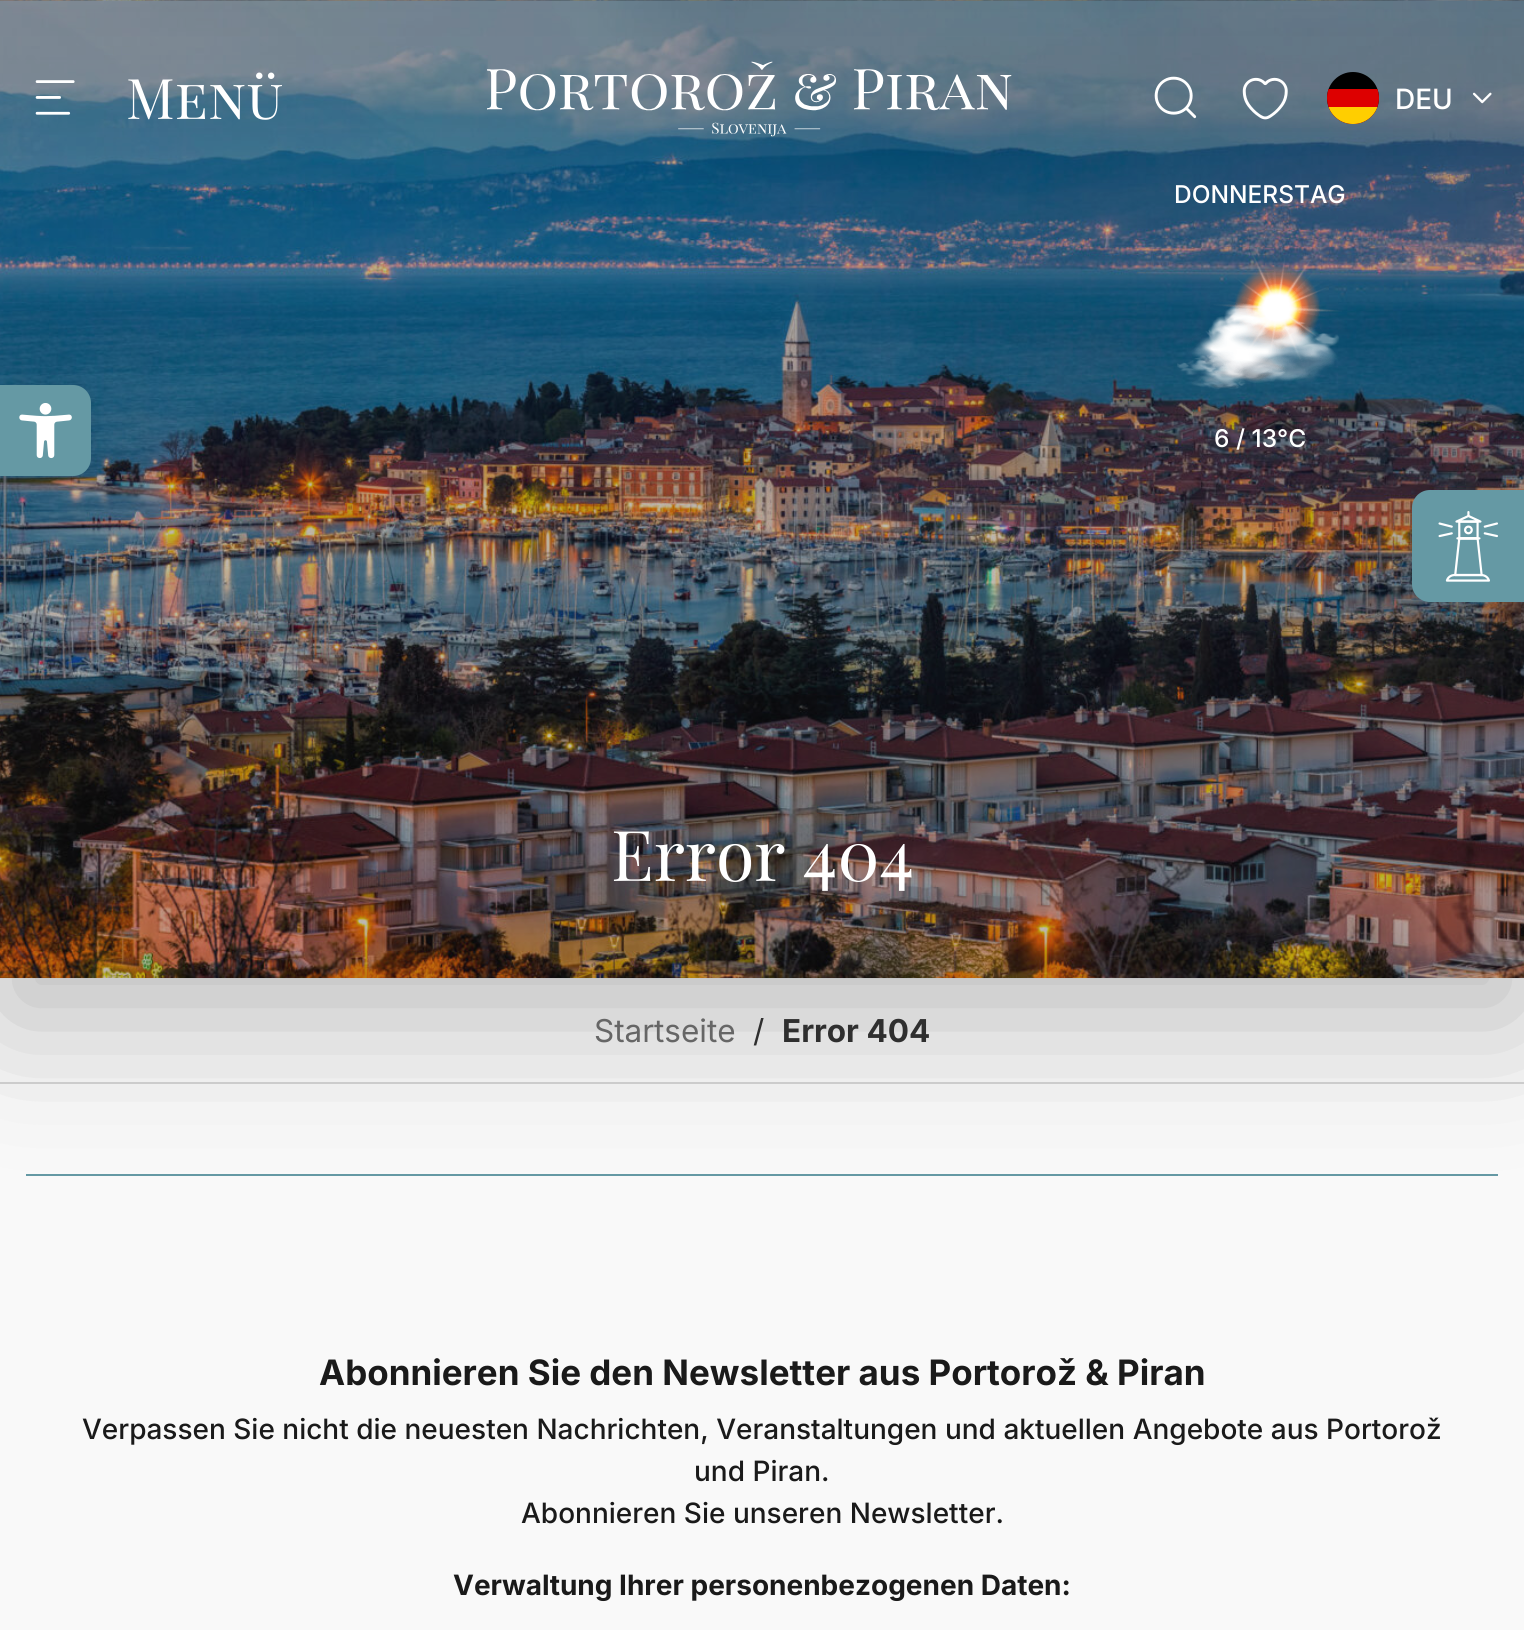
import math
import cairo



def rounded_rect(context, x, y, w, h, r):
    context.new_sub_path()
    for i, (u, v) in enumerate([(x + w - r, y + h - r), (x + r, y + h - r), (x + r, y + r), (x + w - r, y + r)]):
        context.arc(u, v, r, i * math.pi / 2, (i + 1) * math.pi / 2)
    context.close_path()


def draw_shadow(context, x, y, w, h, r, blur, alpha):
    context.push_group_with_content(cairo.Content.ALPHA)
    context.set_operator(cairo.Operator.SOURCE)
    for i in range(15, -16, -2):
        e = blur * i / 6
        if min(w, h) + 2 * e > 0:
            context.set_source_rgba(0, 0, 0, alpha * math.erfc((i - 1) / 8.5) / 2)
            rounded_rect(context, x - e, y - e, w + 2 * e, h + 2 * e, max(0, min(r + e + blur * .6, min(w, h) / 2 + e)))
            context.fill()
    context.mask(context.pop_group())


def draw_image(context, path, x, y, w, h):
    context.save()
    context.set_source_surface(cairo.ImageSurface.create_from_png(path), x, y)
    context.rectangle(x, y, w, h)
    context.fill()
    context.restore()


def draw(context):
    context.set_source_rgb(249 / 255, 249 / 255, 249 / 255)
    context.paint()
    context.set_source_rgb(101 / 255, 153 / 255, 164 / 255)
    context.rectangle(26, 1174, 1472, 2)
    context.fill()
    context.set_source_rgb(0, 0, 0)
    draw_shadow(context, 0, 42, 1524, 978, 0, 70, 0.25)
    draw_image(context, "images/8.png", 0, 0, 1524, 979)
    draw_image(context, "images/1.png", 35, 80, 40, 35)
    draw_image(context, "images/2.png", 487, 61, 525, 76)
    draw_image(context, "images/3.png", 1154, 76, 43, 43)
    draw_image(context, "images/4.png", 1242, 77, 46, 43)
    context.set_source_rgb(0, 0, 0)
    context.arc(1353, 98, 26, 0, 2 * math.pi)
    context.fill()
    context.save()
    rounded_rect(context, 1327, 72, 52, 52, 26)
    context.clip()
    context.set_source_rgb(221 / 255, 0, 0)
    context.new_path()
    context.move_to(1327, 89)
    context.line_to(1379, 89)
    context.line_to(1379, 98)
    context.curve_to(1379, 112.5, 1367.5, 124, 1353, 124)
    context.curve_to(1338.5, 124, 1327, 112.5, 1327, 98)
    context.close_path()
    context.fill()
    context.set_source_rgb(1, 206 / 255, 0)
    context.rectangle(1328, 107, 50, 17)
    context.fill()
    context.restore()
    draw_image(context, "images/5.png", 1472, 92, 20, 12)
    context.set_source_rgb(0, 0, 0)
    draw_shadow(context, 0, 385, 91, 91, 18, 9, 0.1)
    context.set_source_rgb(101 / 255, 153 / 255, 164 / 255)
    context.new_path()
    context.move_to(0, 385)
    context.line_to(73, 385)
    context.curve_to(83, 385, 91, 393, 91, 403)
    context.line_to(91, 458)
    context.curve_to(91, 468, 83, 476, 73, 476)
    context.line_to(0, 476)
    context.close_path()
    context.fill()
    draw_image(context, "images/6.png", 19, 403, 53, 56)
    draw_image(context, "images/7.png", 1177, 250, 165, 139)
    context.set_source_rgb(0, 0, 0)
    draw_shadow(context, 1412, 532, 112, 112, 18, 70, 0.25)
    context.set_source_rgb(101 / 255, 153 / 255, 164 / 255)
    context.new_path()
    context.move_to(1430, 490)
    context.line_to(1524, 490)
    context.line_to(1524, 602)
    context.line_to(1430, 602)
    context.curve_to(1420, 602, 1412, 594, 1412, 584)
    context.line_to(1412, 508)
    context.curve_to(1412, 498, 1420, 490, 1430, 490)
    context.close_path()
    context.fill()
    draw_image(context, "images/9.png", 1438, 511, 60, 71)
    context.set_source_rgb(204 / 255, 204 / 255, 204 / 255)
    context.rectangle(0, 1082, 1524, 2)
    context.fill()
    context.select_font_face("Playfair Display SC")
    context.set_font_size(56)
    context.set_source_rgb(1, 1, 1)
    context.move_to(126, 119)
    context.show_text("Menü")
    context.select_font_face("Inter Medium")
    context.set_font_size(28)
    context.move_to(1395, 109)
    context.show_text("DEU")
    context.set_font_size(24.5)
    context.move_to(1174, 203)
    context.show_text("DONNERSTAG")
    context.move_to(1214, 447)
    context.show_text("6 / 13°C")
    context.select_font_face("Playfair Display")
    context.set_font_size(70)
    context.move_to(611, 881)
    context.show_text("Error 404")
    context.select_font_face("Inter")
    context.set_font_size(31.5)
    context.set_source_rgb(102 / 255, 102 / 255, 102 / 255)
    context.move_to(594, 1042)
    context.show_text("Startseite")
    context.set_source_rgb(47 / 255, 47 / 255, 47 / 255)
    context.move_to(753, 1042)
    context.show_text("/")
    context.select_font_face("Inter", cairo.FontSlant.NORMAL, cairo.FontWeight.BOLD)
    context.move_to(782, 1042)
    context.show_text("Error 404")
    context.set_font_size(35)
    context.set_source_rgb(26 / 255, 26 / 255, 26 / 255)
    context.move_to(319, 1385)
    context.show_text("Abonnieren Sie den Newsletter aus Portorož & Piran")
    context.select_font_face("Inter Medium")
    context.set_font_size(28)
    context.move_to(82, 1439)
    context.show_text("Verpassen Sie nicht die neuesten Nachrichten, Veranstaltungen und aktuellen Angebote aus Portorož")
    context.move_to(694, 1481)
    context.show_text("und Piran.")
    context.move_to(521, 1523)
    context.show_text("Abonnieren Sie unseren Newsletter.")
    context.select_font_face("Inter", cairo.FontSlant.NORMAL, cairo.FontWeight.BOLD)
    context.move_to(453, 1595)
    context.show_text("Verwaltung Ihrer personenbezogenen Daten:")


surface = cairo.ImageSurface(cairo.Format.RGB24, 1524, 1630)
context = cairo.Context(surface)
options = cairo.FontOptions()
options.set_hint_metrics(cairo.HintMetrics.OFF)
options.set_hint_style(cairo.HintStyle.NONE)
context.set_font_options(options)
context.set_miter_limit(4)
draw(context)
surface.write_to_png("out.png")
